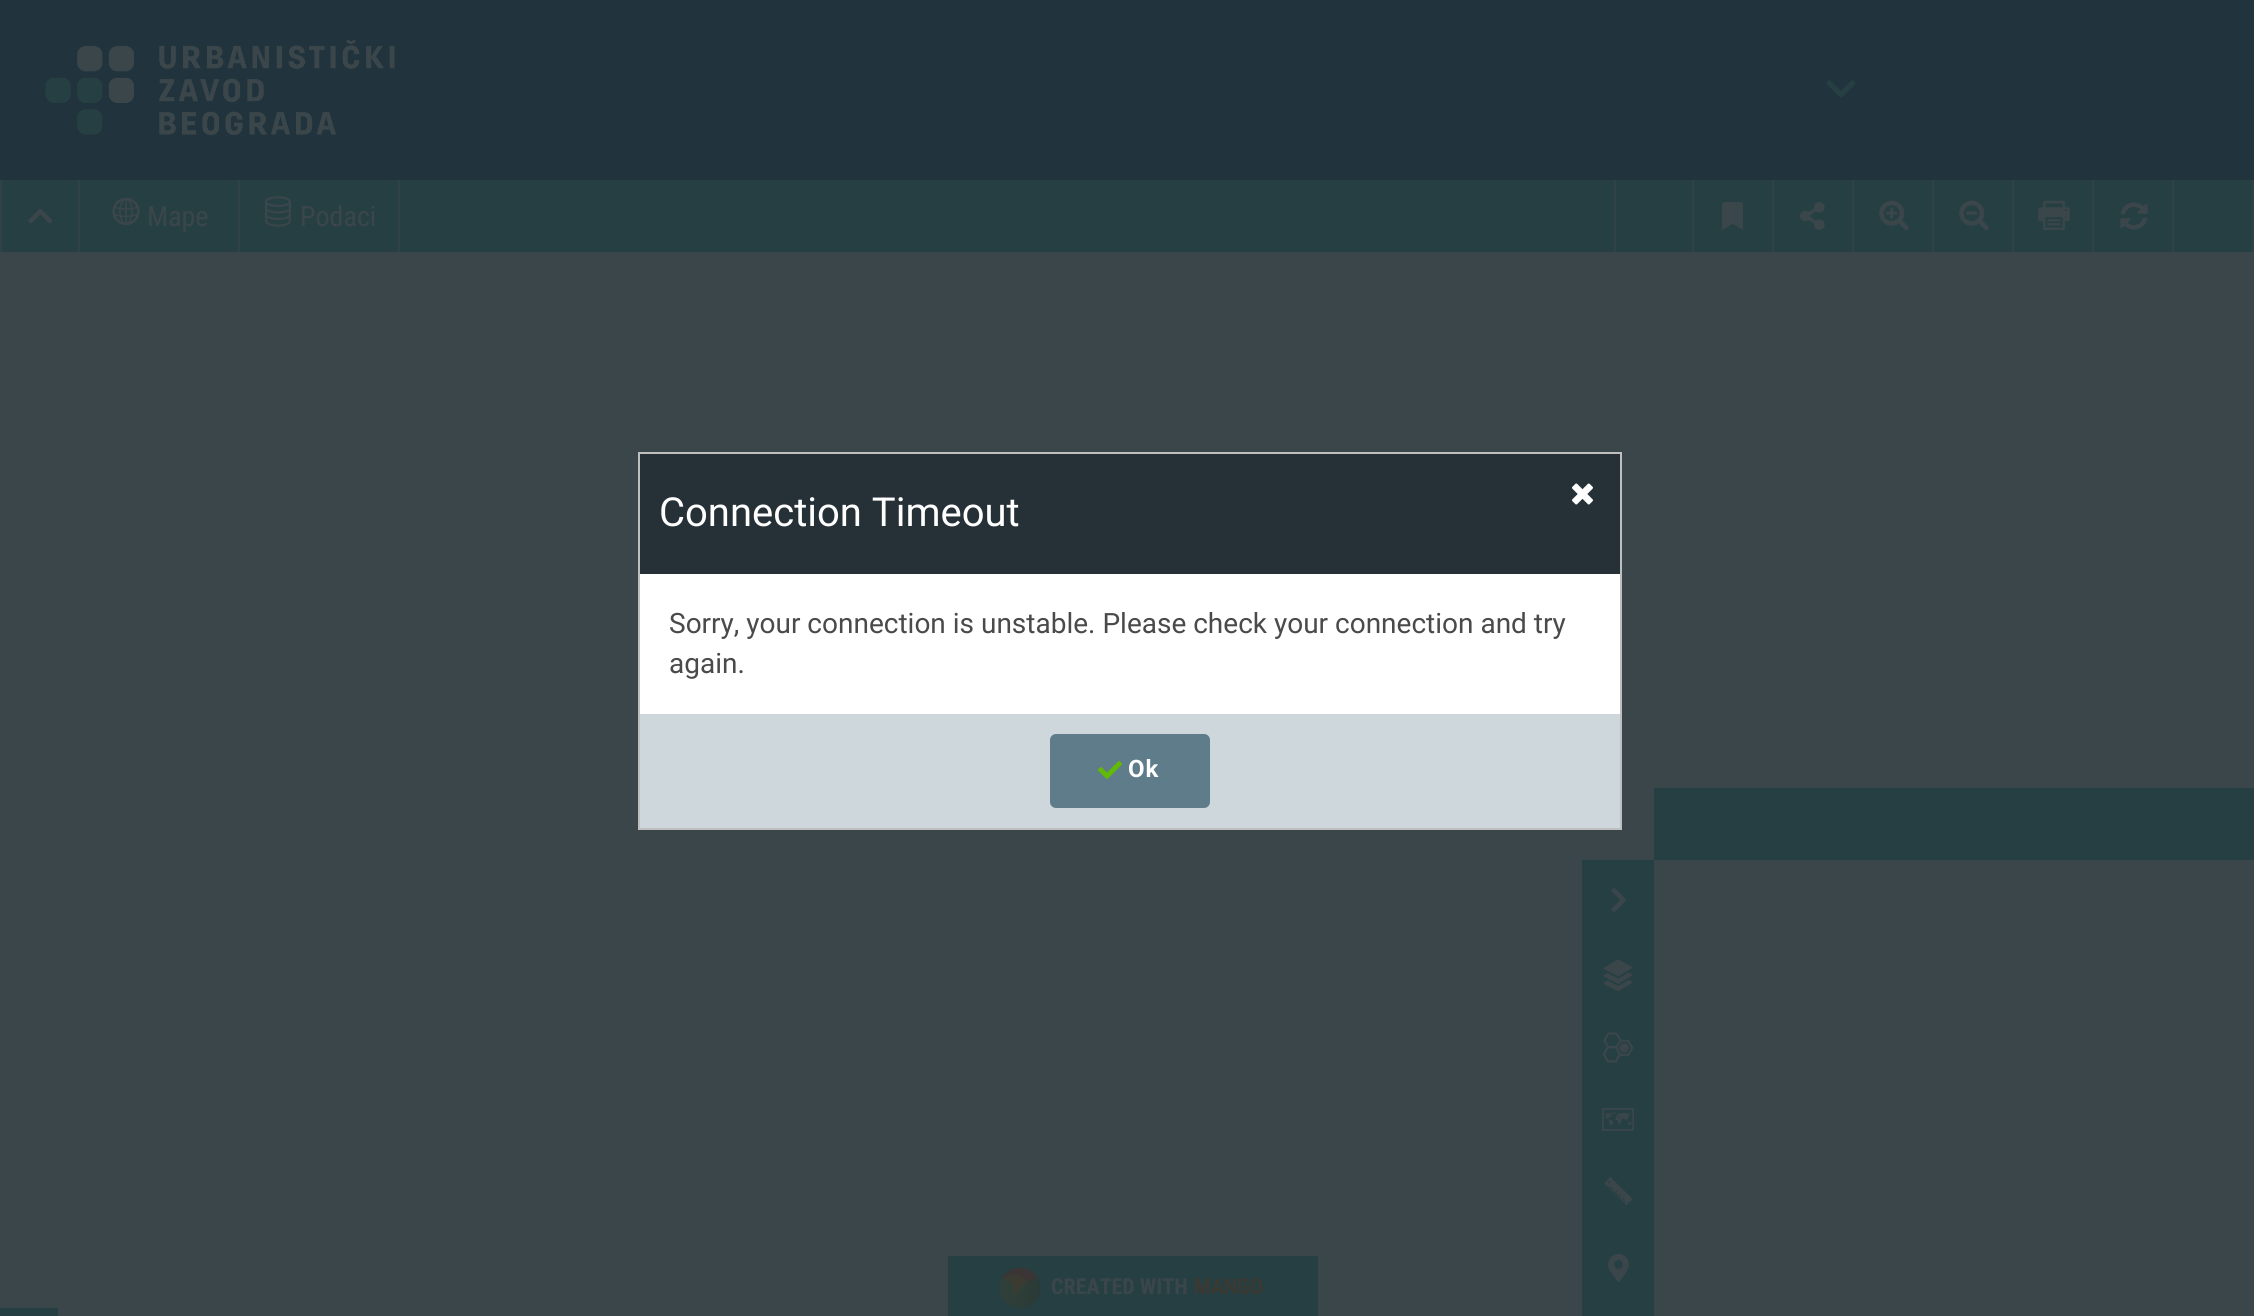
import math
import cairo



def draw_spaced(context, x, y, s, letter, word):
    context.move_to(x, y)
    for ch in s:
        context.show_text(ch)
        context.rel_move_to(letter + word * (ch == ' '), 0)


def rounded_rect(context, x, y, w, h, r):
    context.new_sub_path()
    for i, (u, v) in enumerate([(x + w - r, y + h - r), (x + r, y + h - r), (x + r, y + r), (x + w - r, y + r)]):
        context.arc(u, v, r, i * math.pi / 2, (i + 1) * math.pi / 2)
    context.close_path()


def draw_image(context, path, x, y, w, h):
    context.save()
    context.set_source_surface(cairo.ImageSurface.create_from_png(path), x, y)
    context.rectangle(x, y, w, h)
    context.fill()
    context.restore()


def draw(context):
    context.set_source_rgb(59 / 255, 70 / 255, 75 / 255)
    context.paint()
    context.set_source_rgb(33 / 255, 51 / 255, 60 / 255)
    context.rectangle(0, 0, 2254, 180)
    context.fill()
    draw_image(context, "images/1.png", 45, 39, 350, 97)
    draw_image(context, "images/2.png", 1826, 80, 30, 18)
    context.set_source_rgb(38 / 255, 63 / 255, 67 / 255)
    context.rectangle(2, 180, 2250, 72)
    context.fill()
    context.set_source_rgb(49 / 255, 66 / 255, 71 / 255)
    context.rectangle(78, 180, 2, 72)
    context.fill()
    context.rectangle(0, 180, 2, 72)
    context.fill()
    draw_image(context, "images/3.png", 28, 208, 25, 16)
    context.rectangle(238, 180, 2, 72)
    context.fill()
    draw_image(context, "images/4.png", 112, 197, 28, 29)
    context.rectangle(398, 180, 2, 72)
    context.fill()
    draw_image(context, "images/5.png", 265, 196, 26, 31)
    context.rectangle(1692, 180, 2, 72)
    context.fill()
    context.rectangle(1614, 180, 2, 72)
    context.fill()
    context.rectangle(1772, 180, 2, 72)
    context.fill()
    draw_image(context, "images/6.png", 1722, 202, 21, 28)
    context.rectangle(1852, 180, 2, 72)
    context.fill()
    draw_image(context, "images/7.png", 1800, 202, 25, 28)
    context.rectangle(1932, 180, 2, 72)
    context.fill()
    draw_image(context, "images/8.png", 1879, 200, 30, 31)
    context.rectangle(2012, 180, 2, 72)
    context.fill()
    draw_image(context, "images/9.png", 1959, 200, 30, 31)
    context.rectangle(2092, 180, 2, 72)
    context.fill()
    draw_image(context, "images/10.png", 2038, 200, 32, 30)
    context.rectangle(2172, 180, 2, 72)
    context.fill()
    draw_image(context, "images/11.png", 2120, 202, 28, 28)
    context.rectangle(2252, 180, 2, 72)
    context.fill()
    context.set_source_rgb(38 / 255, 63 / 255, 67 / 255)
    context.rectangle(948, 1256, 370, 60)
    context.fill()
    draw_image(context, "images/12.png", 1000, 1268, 40, 40)
    context.rectangle(1654, 788, 600, 72)
    context.fill()
    context.rectangle(1582, 860, 72, 456)
    context.fill()
    draw_image(context, "images/13.png", 1611, 888, 15, 24)
    draw_image(context, "images/14.png", 1603, 959, 30, 33)
    draw_image(context, "images/15.png", 1602, 1032, 32, 31)
    draw_image(context, "images/16.png", 1602, 1108, 32, 23)
    draw_image(context, "images/17.png", 1604, 1177, 29, 28)
    draw_image(context, "images/18.png", 1608, 1254, 21, 28)
    context.rectangle(0, 1308, 58, 8)
    context.fill()
    context.set_source_rgb(1, 1, 1)
    context.rectangle(640, 574, 980, 140)
    context.fill()
    context.rectangle(639, 453, 982, 376)
    context.set_source_rgb(191 / 255, 191 / 255, 191 / 255)
    context.stroke()
    context.set_source_rgb(37 / 255, 49 / 255, 55 / 255)
    context.rectangle(640, 454, 980, 120)
    context.fill()
    draw_image(context, "images/19.png", 1572, 483, 21, 22)
    context.set_source_rgb(206 / 255, 215 / 255, 219 / 255)
    context.rectangle(640, 714, 980, 114)
    context.fill()
    context.set_source_rgb(95 / 255, 124 / 255, 138 / 255)
    rounded_rect(context, 1050, 734, 160, 74, 6)
    context.fill()
    draw_image(context, "images/20.png", 1098, 761, 24, 18)
    context.select_font_face("Roboto Condensed")
    context.set_font_size(28)
    context.set_source_rgb(59 / 255, 70 / 255, 75 / 255)
    context.move_to(147, 226)
    context.show_text("Mape")
    context.move_to(300, 226)
    context.show_text("Podaci")
    context.select_font_face("Roboto Condensed", cairo.FontSlant.NORMAL, cairo.FontWeight.BOLD)
    context.set_font_size(22)
    context.move_to(1051, 1294)
    context.show_text("CREATED WITH")
    context.set_source_rgb(58 / 255, 57 / 255, 50 / 255)
    context.move_to(1194, 1294)
    context.show_text("MANGO")
    context.select_font_face("Roboto")
    context.set_font_size(40)
    context.set_source_rgb(1, 1, 1)
    context.move_to(659, 526)
    context.show_text("Connection Timeout")
    context.set_font_size(28)
    context.set_source_rgb(74 / 255, 74 / 255, 74 / 255)
    context.move_to(669, 633)
    context.show_text("Sorry, your connection is unstable. Please check your connection and try")
    context.move_to(669, 673)
    context.show_text("again.")
    context.select_font_face("Roboto", cairo.FontSlant.NORMAL, cairo.FontWeight.BOLD)
    context.set_font_size(24)
    context.set_source_rgb(1, 1, 1)
    draw_spaced(context, 1128, 777, "Ok", 1, 0)


surface = cairo.ImageSurface(cairo.Format.RGB24, 2254, 1316)
context = cairo.Context(surface)
options = cairo.FontOptions()
options.set_hint_metrics(cairo.HintMetrics.OFF)
options.set_hint_style(cairo.HintStyle.NONE)
context.set_font_options(options)
context.set_miter_limit(4)
draw(context)
surface.write_to_png("out.png")
